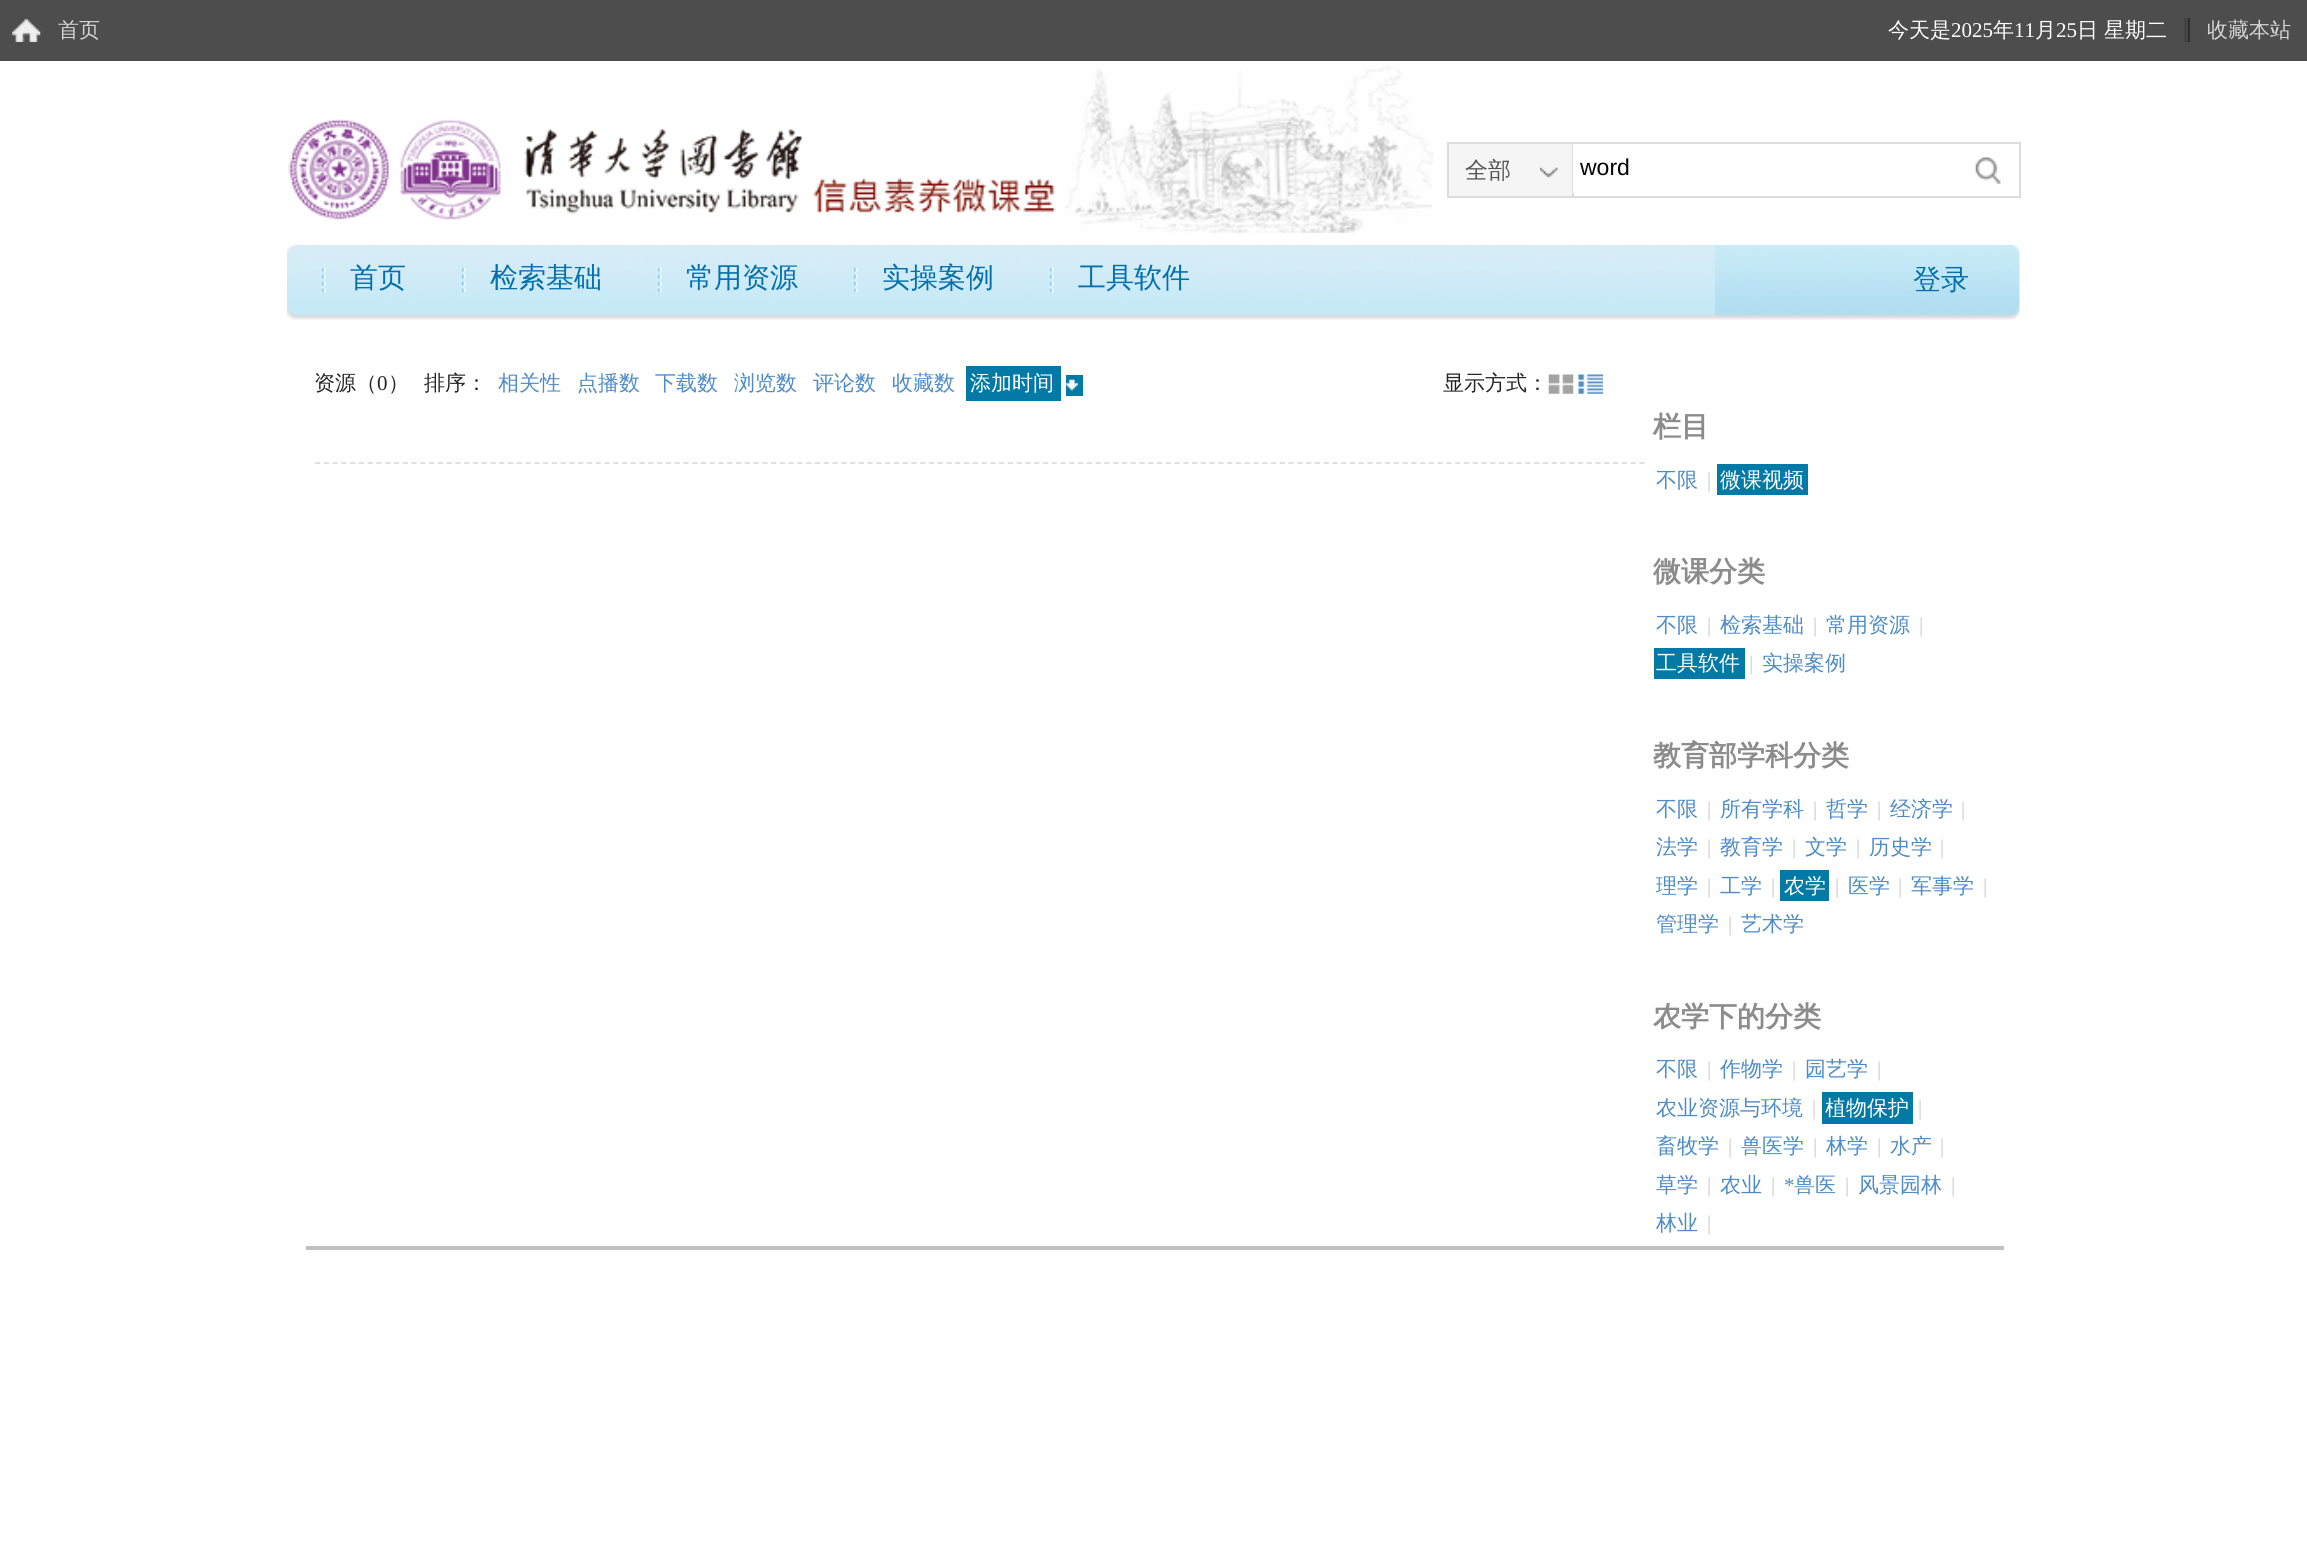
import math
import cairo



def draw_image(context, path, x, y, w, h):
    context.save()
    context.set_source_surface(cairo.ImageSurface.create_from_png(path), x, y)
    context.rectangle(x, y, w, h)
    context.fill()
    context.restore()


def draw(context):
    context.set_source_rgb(1, 1, 1)
    context.paint()
    context.set_source_rgb(77 / 255, 77 / 255, 77 / 255)
    context.rectangle(0, 0, 2307, 61)
    context.fill()
    draw_image(context, "images/1.png", 12, 19, 29, 23)
    context.set_source_rgb(68 / 255, 68 / 255, 68 / 255)
    context.rectangle(2184, 18, 4, 24)
    context.fill()
    context.set_source_rgb(46 / 255, 46 / 255, 46 / 255)
    context.rectangle(2188, 18, 2, 24)
    context.fill()
    draw_image(context, "images/2.png", 288, 119, 768, 101)
    draw_image(context, "images/3.png", 1065, 65, 369, 168)
    context.rectangle(1448, 143, 572, 54)
    context.set_source_rgb(220 / 255, 220 / 255, 220 / 255)
    context.stroke()
    context.set_source_rgb(245 / 255, 245 / 255, 245 / 255)
    context.rectangle(1449, 144, 123, 52)
    context.fill()
    draw_image(context, "images/4.png", 1540, 167, 18, 11)
    context.set_source_rgb(220 / 255, 220 / 255, 220 / 255)
    context.rectangle(1572, 144, 2, 52)
    context.fill()
    context.set_source_rgb(1, 1, 1)
    context.rectangle(1573, 144, 1, 49)
    context.fill()
    draw_image(context, "images/5.png", 1975, 157, 26, 27)
    draw_image(context, "images/6.png", 287, 245, 1733, 75)
    draw_image(context, "images/7.png", 322, 267, 4, 26)
    draw_image(context, "images/8.png", 462, 267, 4, 26)
    draw_image(context, "images/9.png", 658, 267, 4, 26)
    draw_image(context, "images/10.png", 854, 267, 4, 26)
    draw_image(context, "images/11.png", 1050, 267, 4, 26)
    context.set_source_rgb(3 / 255, 122 / 255, 165 / 255)
    context.rectangle(966, 366, 95, 35)
    context.fill()
    context.rectangle(1066, 375, 17, 21)
    context.fill()
    draw_image(context, "images/12.png", 1066, 379, 12, 12)
    draw_image(context, "images/13.png", 1548, 374, 26, 20)
    draw_image(context, "images/14.png", 1578, 374, 25, 20)
    context.new_path()
    context.move_to(315, 463)
    context.line_to(1645, 463)
    context.set_source_rgb(221 / 255, 221 / 255, 221 / 255)
    context.set_line_width(1.8)
    context.set_dash([5.25, 3.52])
    context.stroke()
    context.set_source_rgb(3 / 255, 122 / 255, 165 / 255)
    context.rectangle(1717, 464, 91, 31)
    context.fill()
    context.rectangle(1654, 648, 91, 31)
    context.fill()
    context.rectangle(1780, 870, 49, 31)
    context.fill()
    context.rectangle(1822, 1092, 91, 32)
    context.fill()
    context.set_source_rgb(192 / 255, 192 / 255, 192 / 255)
    context.rectangle(306, 1246, 1698, 4)
    context.fill()
    context.select_font_face("WenQuanYi Zen Hei Medium")
    context.set_font_size(21)
    context.set_source_rgb(211 / 255, 211 / 255, 211 / 255)
    context.move_to(58, 37)
    context.show_text("首页")
    context.set_source_rgb(1, 1, 1)
    context.move_to(1888, 37)
    context.show_text("今天是")
    context.select_font_face("Liberation Serif")
    context.move_to(1951, 37)
    context.show_text("2025")
    context.select_font_face("WenQuanYi Zen Hei Medium")
    context.move_to(1993, 37)
    context.show_text("年")
    context.select_font_face("Liberation Serif")
    context.move_to(2014, 37)
    context.show_text("11")
    context.select_font_face("WenQuanYi Zen Hei Medium")
    context.move_to(2035, 37)
    context.show_text("月")
    context.select_font_face("Liberation Serif")
    context.move_to(2056, 37)
    context.show_text("25")
    context.select_font_face("WenQuanYi Zen Hei Medium")
    context.move_to(2077, 37)
    context.show_text("日")
    context.move_to(2104, 37)
    context.show_text("星期二")
    context.set_source_rgb(211 / 255, 211 / 255, 211 / 255)
    context.move_to(2207, 37)
    context.show_text("收藏本站")
    context.set_font_size(23)
    context.set_source_rgb(85 / 255, 85 / 255, 85 / 255)
    context.move_to(1465, 178)
    context.show_text("全部")
    context.select_font_face("Liberation Sans")
    context.set_source_rgb(0, 0, 0)
    context.move_to(1580, 175)
    context.show_text("word")
    context.select_font_face("WenQuanYi Zen Hei Medium")
    context.set_font_size(28)
    context.set_source_rgb(3 / 255, 112 / 255, 174 / 255)
    context.move_to(350, 287)
    context.show_text("首页")
    context.move_to(490, 287)
    context.show_text("检索基础")
    context.move_to(686, 287)
    context.show_text("常用资源")
    context.move_to(882, 287)
    context.show_text("实操案例")
    context.move_to(1078, 287)
    context.show_text("工具软件")
    context.move_to(1913, 289)
    context.show_text("登录")
    context.set_font_size(21)
    context.set_source_rgb(37 / 255, 37 / 255, 37 / 255)
    context.move_to(314, 390)
    context.show_text("资源（")
    context.select_font_face("Liberation Serif")
    context.move_to(377, 390)
    context.show_text("0")
    context.select_font_face("WenQuanYi Zen Hei Medium")
    context.move_to(388, 390)
    context.show_text("）")
    context.move_to(424, 390)
    context.show_text("排序：")
    context.set_source_rgb(77 / 255, 140 / 255, 199 / 255)
    context.move_to(498, 390)
    context.show_text("相关性")
    context.move_to(577, 390)
    context.show_text("点播数")
    context.move_to(655, 390)
    context.show_text("下载数")
    context.move_to(734, 390)
    context.show_text("浏览数")
    context.move_to(813, 390)
    context.show_text("评论数")
    context.move_to(892, 390)
    context.show_text("收藏数")
    context.set_source_rgb(1, 1, 1)
    context.move_to(970, 390)
    context.show_text("添加时间")
    context.set_source_rgb(37 / 255, 37 / 255, 37 / 255)
    context.move_to(1443, 390)
    context.show_text("显示方式：")
    context.select_font_face("WenQuanYi Zen Hei", cairo.FontSlant.NORMAL, cairo.FontWeight.BOLD)
    context.set_font_size(28)
    context.set_source_rgb(140 / 255, 140 / 255, 140 / 255)
    context.move_to(1653, 436)
    context.show_text("栏目")
    context.select_font_face("WenQuanYi Zen Hei Medium")
    context.set_font_size(21)
    context.set_source_rgb(77 / 255, 140 / 255, 199 / 255)
    context.move_to(1656, 487)
    context.show_text("不限")
    context.select_font_face("Liberation Serif")
    context.set_source_rgb(201 / 255, 202 / 255, 203 / 255)
    context.move_to(1707, 487)
    context.show_text("|")
    context.select_font_face("WenQuanYi Zen Hei Medium")
    context.set_source_rgb(1, 1, 1)
    context.move_to(1720, 487)
    context.show_text("微课视频")
    context.select_font_face("WenQuanYi Zen Hei", cairo.FontSlant.NORMAL, cairo.FontWeight.BOLD)
    context.set_font_size(28)
    context.set_source_rgb(140 / 255, 140 / 255, 140 / 255)
    context.move_to(1653, 581)
    context.show_text("微课分类")
    context.select_font_face("WenQuanYi Zen Hei Medium")
    context.set_font_size(21)
    context.set_source_rgb(77 / 255, 140 / 255, 199 / 255)
    context.move_to(1656, 632)
    context.show_text("不限")
    context.select_font_face("Liberation Serif")
    context.set_source_rgb(201 / 255, 202 / 255, 203 / 255)
    context.move_to(1707, 632)
    context.show_text("|")
    context.select_font_face("WenQuanYi Zen Hei Medium")
    context.set_source_rgb(77 / 255, 140 / 255, 199 / 255)
    context.move_to(1720, 632)
    context.show_text("检索基础")
    context.select_font_face("Liberation Serif")
    context.set_source_rgb(201 / 255, 202 / 255, 203 / 255)
    context.move_to(1813, 632)
    context.show_text("|")
    context.select_font_face("WenQuanYi Zen Hei Medium")
    context.set_source_rgb(77 / 255, 140 / 255, 199 / 255)
    context.move_to(1826, 632)
    context.show_text("常用资源")
    context.select_font_face("Liberation Serif")
    context.set_source_rgb(201 / 255, 202 / 255, 203 / 255)
    context.move_to(1919, 632)
    context.show_text("|")
    context.select_font_face("WenQuanYi Zen Hei Medium")
    context.set_source_rgb(1, 1, 1)
    context.move_to(1656, 670)
    context.show_text("工具软件")
    context.select_font_face("Liberation Serif")
    context.set_source_rgb(201 / 255, 202 / 255, 203 / 255)
    context.move_to(1749, 670)
    context.show_text("|")
    context.select_font_face("WenQuanYi Zen Hei Medium")
    context.set_source_rgb(77 / 255, 140 / 255, 199 / 255)
    context.move_to(1762, 670)
    context.show_text("实操案例")
    context.select_font_face("WenQuanYi Zen Hei", cairo.FontSlant.NORMAL, cairo.FontWeight.BOLD)
    context.set_font_size(28)
    context.set_source_rgb(140 / 255, 140 / 255, 140 / 255)
    context.move_to(1653, 765)
    context.show_text("教育部学科分类")
    context.select_font_face("WenQuanYi Zen Hei Medium")
    context.set_font_size(21)
    context.set_source_rgb(77 / 255, 140 / 255, 199 / 255)
    context.move_to(1656, 816)
    context.show_text("不限")
    context.select_font_face("Liberation Serif")
    context.set_source_rgb(201 / 255, 202 / 255, 203 / 255)
    context.move_to(1707, 816)
    context.show_text("|")
    context.select_font_face("WenQuanYi Zen Hei Medium")
    context.set_source_rgb(77 / 255, 140 / 255, 199 / 255)
    context.move_to(1720, 816)
    context.show_text("所有学科")
    context.select_font_face("Liberation Serif")
    context.set_source_rgb(201 / 255, 202 / 255, 203 / 255)
    context.move_to(1813, 816)
    context.show_text("|")
    context.select_font_face("WenQuanYi Zen Hei Medium")
    context.set_source_rgb(77 / 255, 140 / 255, 199 / 255)
    context.move_to(1826, 816)
    context.show_text("哲学")
    context.select_font_face("Liberation Serif")
    context.set_source_rgb(201 / 255, 202 / 255, 203 / 255)
    context.move_to(1877, 816)
    context.show_text("|")
    context.select_font_face("WenQuanYi Zen Hei Medium")
    context.set_source_rgb(77 / 255, 140 / 255, 199 / 255)
    context.move_to(1890, 816)
    context.show_text("经济学")
    context.select_font_face("Liberation Serif")
    context.set_source_rgb(201 / 255, 202 / 255, 203 / 255)
    context.move_to(1961, 816)
    context.show_text("|")
    context.select_font_face("WenQuanYi Zen Hei Medium")
    context.set_source_rgb(77 / 255, 140 / 255, 199 / 255)
    context.move_to(1656, 854)
    context.show_text("法学")
    context.select_font_face("Liberation Serif")
    context.set_source_rgb(201 / 255, 202 / 255, 203 / 255)
    context.move_to(1707, 854)
    context.show_text("|")
    context.select_font_face("WenQuanYi Zen Hei Medium")
    context.set_source_rgb(77 / 255, 140 / 255, 199 / 255)
    context.move_to(1720, 854)
    context.show_text("教育学")
    context.select_font_face("Liberation Serif")
    context.set_source_rgb(201 / 255, 202 / 255, 203 / 255)
    context.move_to(1792, 854)
    context.show_text("|")
    context.select_font_face("WenQuanYi Zen Hei Medium")
    context.set_source_rgb(77 / 255, 140 / 255, 199 / 255)
    context.move_to(1805, 854)
    context.show_text("文学")
    context.select_font_face("Liberation Serif")
    context.set_source_rgb(201 / 255, 202 / 255, 203 / 255)
    context.move_to(1856, 854)
    context.show_text("|")
    context.select_font_face("WenQuanYi Zen Hei Medium")
    context.set_source_rgb(77 / 255, 140 / 255, 199 / 255)
    context.move_to(1869, 854)
    context.show_text("历史学")
    context.select_font_face("Liberation Serif")
    context.set_source_rgb(201 / 255, 202 / 255, 203 / 255)
    context.move_to(1940, 854)
    context.show_text("|")
    context.select_font_face("WenQuanYi Zen Hei Medium")
    context.set_source_rgb(77 / 255, 140 / 255, 199 / 255)
    context.move_to(1656, 893)
    context.show_text("理学")
    context.select_font_face("Liberation Serif")
    context.set_source_rgb(201 / 255, 202 / 255, 203 / 255)
    context.move_to(1707, 893)
    context.show_text("|")
    context.select_font_face("WenQuanYi Zen Hei Medium")
    context.set_source_rgb(77 / 255, 140 / 255, 199 / 255)
    context.move_to(1720, 893)
    context.show_text("工学")
    context.select_font_face("Liberation Serif")
    context.set_source_rgb(201 / 255, 202 / 255, 203 / 255)
    context.move_to(1771, 893)
    context.show_text("|")
    context.select_font_face("WenQuanYi Zen Hei Medium")
    context.set_source_rgb(1, 1, 1)
    context.move_to(1784, 893)
    context.show_text("农学")
    context.select_font_face("Liberation Serif")
    context.set_source_rgb(201 / 255, 202 / 255, 203 / 255)
    context.move_to(1835, 893)
    context.show_text("|")
    context.select_font_face("WenQuanYi Zen Hei Medium")
    context.set_source_rgb(77 / 255, 140 / 255, 199 / 255)
    context.move_to(1848, 893)
    context.show_text("医学")
    context.select_font_face("Liberation Serif")
    context.set_source_rgb(201 / 255, 202 / 255, 203 / 255)
    context.move_to(1898, 893)
    context.show_text("|")
    context.select_font_face("WenQuanYi Zen Hei Medium")
    context.set_source_rgb(77 / 255, 140 / 255, 199 / 255)
    context.move_to(1911, 893)
    context.show_text("军事学")
    context.select_font_face("Liberation Serif")
    context.set_source_rgb(201 / 255, 202 / 255, 203 / 255)
    context.move_to(1983, 893)
    context.show_text("|")
    context.select_font_face("WenQuanYi Zen Hei Medium")
    context.set_source_rgb(77 / 255, 140 / 255, 199 / 255)
    context.move_to(1656, 931)
    context.show_text("管理学")
    context.select_font_face("Liberation Serif")
    context.set_source_rgb(201 / 255, 202 / 255, 203 / 255)
    context.move_to(1728, 931)
    context.show_text("|")
    context.select_font_face("WenQuanYi Zen Hei Medium")
    context.set_source_rgb(77 / 255, 140 / 255, 199 / 255)
    context.move_to(1741, 931)
    context.show_text("艺术学")
    context.select_font_face("WenQuanYi Zen Hei", cairo.FontSlant.NORMAL, cairo.FontWeight.BOLD)
    context.set_font_size(28)
    context.set_source_rgb(140 / 255, 140 / 255, 140 / 255)
    context.move_to(1653, 1026)
    context.show_text("农学下的分类")
    context.select_font_face("WenQuanYi Zen Hei Medium")
    context.set_font_size(21)
    context.set_source_rgb(77 / 255, 140 / 255, 199 / 255)
    context.move_to(1656, 1076)
    context.show_text("不限")
    context.select_font_face("Liberation Serif")
    context.set_source_rgb(201 / 255, 202 / 255, 203 / 255)
    context.move_to(1707, 1076)
    context.show_text("|")
    context.select_font_face("WenQuanYi Zen Hei Medium")
    context.set_source_rgb(77 / 255, 140 / 255, 199 / 255)
    context.move_to(1720, 1076)
    context.show_text("作物学")
    context.select_font_face("Liberation Serif")
    context.set_source_rgb(201 / 255, 202 / 255, 203 / 255)
    context.move_to(1792, 1076)
    context.show_text("|")
    context.select_font_face("WenQuanYi Zen Hei Medium")
    context.set_source_rgb(77 / 255, 140 / 255, 199 / 255)
    context.move_to(1805, 1076)
    context.show_text("园艺学")
    context.select_font_face("Liberation Serif")
    context.set_source_rgb(201 / 255, 202 / 255, 203 / 255)
    context.move_to(1877, 1076)
    context.show_text("|")
    context.select_font_face("WenQuanYi Zen Hei Medium")
    context.set_source_rgb(77 / 255, 140 / 255, 199 / 255)
    context.move_to(1656, 1115)
    context.show_text("农业资源与环境")
    context.select_font_face("Liberation Serif")
    context.set_source_rgb(201 / 255, 202 / 255, 203 / 255)
    context.move_to(1812, 1115)
    context.show_text("|")
    context.select_font_face("WenQuanYi Zen Hei Medium")
    context.set_source_rgb(1, 1, 1)
    context.move_to(1825, 1115)
    context.show_text("植物保护")
    context.select_font_face("Liberation Serif")
    context.set_source_rgb(201 / 255, 202 / 255, 203 / 255)
    context.move_to(1918, 1115)
    context.show_text("|")
    context.select_font_face("WenQuanYi Zen Hei Medium")
    context.set_source_rgb(77 / 255, 140 / 255, 199 / 255)
    context.move_to(1656, 1153)
    context.show_text("畜牧学")
    context.select_font_face("Liberation Serif")
    context.set_source_rgb(201 / 255, 202 / 255, 203 / 255)
    context.move_to(1728, 1153)
    context.show_text("|")
    context.select_font_face("WenQuanYi Zen Hei Medium")
    context.set_source_rgb(77 / 255, 140 / 255, 199 / 255)
    context.move_to(1741, 1153)
    context.show_text("兽医学")
    context.select_font_face("Liberation Serif")
    context.set_source_rgb(201 / 255, 202 / 255, 203 / 255)
    context.move_to(1813, 1153)
    context.show_text("|")
    context.select_font_face("WenQuanYi Zen Hei Medium")
    context.set_source_rgb(77 / 255, 140 / 255, 199 / 255)
    context.move_to(1826, 1153)
    context.show_text("林学")
    context.select_font_face("Liberation Serif")
    context.set_source_rgb(201 / 255, 202 / 255, 203 / 255)
    context.move_to(1877, 1153)
    context.show_text("|")
    context.select_font_face("WenQuanYi Zen Hei Medium")
    context.set_source_rgb(77 / 255, 140 / 255, 199 / 255)
    context.move_to(1890, 1153)
    context.show_text("水产")
    context.select_font_face("Liberation Serif")
    context.set_source_rgb(201 / 255, 202 / 255, 203 / 255)
    context.move_to(1940, 1153)
    context.show_text("|")
    context.select_font_face("WenQuanYi Zen Hei Medium")
    context.set_source_rgb(77 / 255, 140 / 255, 199 / 255)
    context.move_to(1656, 1192)
    context.show_text("草学")
    context.select_font_face("Liberation Serif")
    context.set_source_rgb(201 / 255, 202 / 255, 203 / 255)
    context.move_to(1707, 1192)
    context.show_text("|")
    context.select_font_face("WenQuanYi Zen Hei Medium")
    context.set_source_rgb(77 / 255, 140 / 255, 199 / 255)
    context.move_to(1720, 1192)
    context.show_text("农业")
    context.select_font_face("Liberation Serif")
    context.set_source_rgb(201 / 255, 202 / 255, 203 / 255)
    context.move_to(1771, 1192)
    context.show_text("|")
    context.set_source_rgb(77 / 255, 140 / 255, 199 / 255)
    context.move_to(1784, 1192)
    context.show_text("*")
    context.select_font_face("WenQuanYi Zen Hei Medium")
    context.move_to(1794, 1192)
    context.show_text("兽医")
    context.select_font_face("Liberation Serif")
    context.set_source_rgb(201 / 255, 202 / 255, 203 / 255)
    context.move_to(1845, 1192)
    context.show_text("|")
    context.select_font_face("WenQuanYi Zen Hei Medium")
    context.set_source_rgb(77 / 255, 140 / 255, 199 / 255)
    context.move_to(1858, 1192)
    context.show_text("风景园林")
    context.select_font_face("Liberation Serif")
    context.set_source_rgb(201 / 255, 202 / 255, 203 / 255)
    context.move_to(1951, 1192)
    context.show_text("|")
    context.select_font_face("WenQuanYi Zen Hei Medium")
    context.set_source_rgb(77 / 255, 140 / 255, 199 / 255)
    context.move_to(1656, 1230)
    context.show_text("林业")
    context.select_font_face("Liberation Serif")
    context.set_source_rgb(201 / 255, 202 / 255, 203 / 255)
    context.move_to(1707, 1230)
    context.show_text("|")


surface = cairo.ImageSurface(cairo.Format.RGB24, 2307, 1550)
context = cairo.Context(surface)
options = cairo.FontOptions()
options.set_hint_metrics(cairo.HintMetrics.OFF)
options.set_hint_style(cairo.HintStyle.NONE)
context.set_font_options(options)
context.set_miter_limit(4)
draw(context)
surface.write_to_png("out.png")
